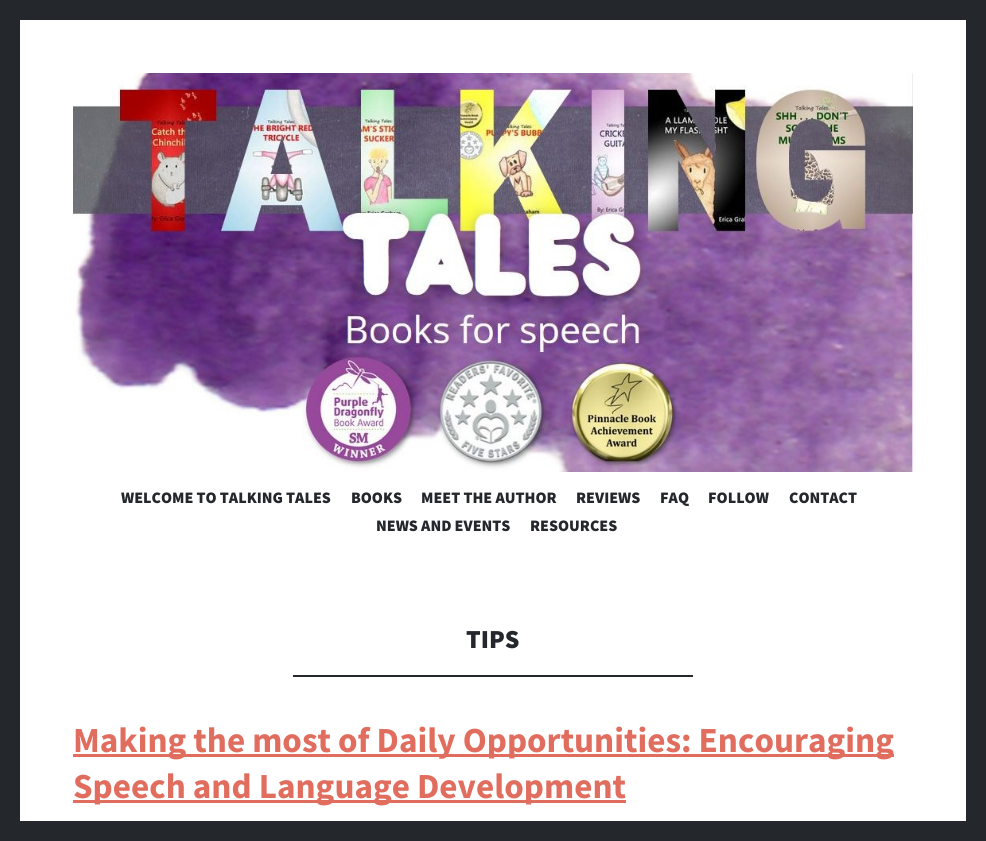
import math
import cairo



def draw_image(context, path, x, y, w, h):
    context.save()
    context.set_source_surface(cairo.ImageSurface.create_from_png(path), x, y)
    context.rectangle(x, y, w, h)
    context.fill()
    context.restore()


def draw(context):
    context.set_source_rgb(36 / 255, 40 / 255, 45 / 255)
    context.paint()
    context.set_source_rgb(1, 1, 1)
    context.rectangle(20, 20, 946, 801)
    context.fill()
    draw_image(context, "images/1.png", 73, 73, 840, 399)
    context.set_source_rgb(36 / 255, 40 / 255, 45 / 255)
    context.rectangle(293, 675, 400, 2)
    context.fill()
    context.set_source_rgb(224 / 255, 109 / 255, 94 / 255)
    context.rectangle(73, 754, 821, 3)
    context.fill()
    context.rectangle(73, 800, 553, 3)
    context.fill()
    context.select_font_face("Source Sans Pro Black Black")
    context.set_font_size(16)
    context.set_source_rgb(36 / 255, 40 / 255, 45 / 255)
    context.move_to(121, 503)
    context.show_text("WELCOME TO TALKING TALES")
    context.move_to(351, 503)
    context.show_text("BOOKS")
    context.move_to(421, 503)
    context.show_text("MEET THE AUTHOR")
    context.move_to(576, 503)
    context.show_text("REVIEWS")
    context.move_to(660, 503)
    context.show_text("FAQ")
    context.move_to(708, 503)
    context.show_text("FOLLOW")
    context.move_to(789, 503)
    context.show_text("CONTACT")
    context.move_to(376, 531)
    context.show_text("NEWS AND EVENTS")
    context.move_to(530, 531)
    context.show_text("RESOURCES")
    context.set_font_size(26)
    context.move_to(466, 648)
    context.show_text("TIPS")
    context.select_font_face("Source Sans Pro", cairo.FontSlant.NORMAL, cairo.FontWeight.BOLD)
    context.set_font_size(35.2)
    context.set_source_rgb(224 / 255, 109 / 255, 94 / 255)
    context.move_to(73, 752)
    context.show_text("Making the most of Daily Opportunities: Encouraging")
    context.move_to(73, 798)
    context.show_text("Speech and Language Development")


surface = cairo.ImageSurface(cairo.Format.RGB24, 986, 841)
context = cairo.Context(surface)
options = cairo.FontOptions()
options.set_hint_metrics(cairo.HintMetrics.OFF)
options.set_hint_style(cairo.HintStyle.NONE)
context.set_font_options(options)
context.set_miter_limit(4)
draw(context)
surface.write_to_png("out.png")
